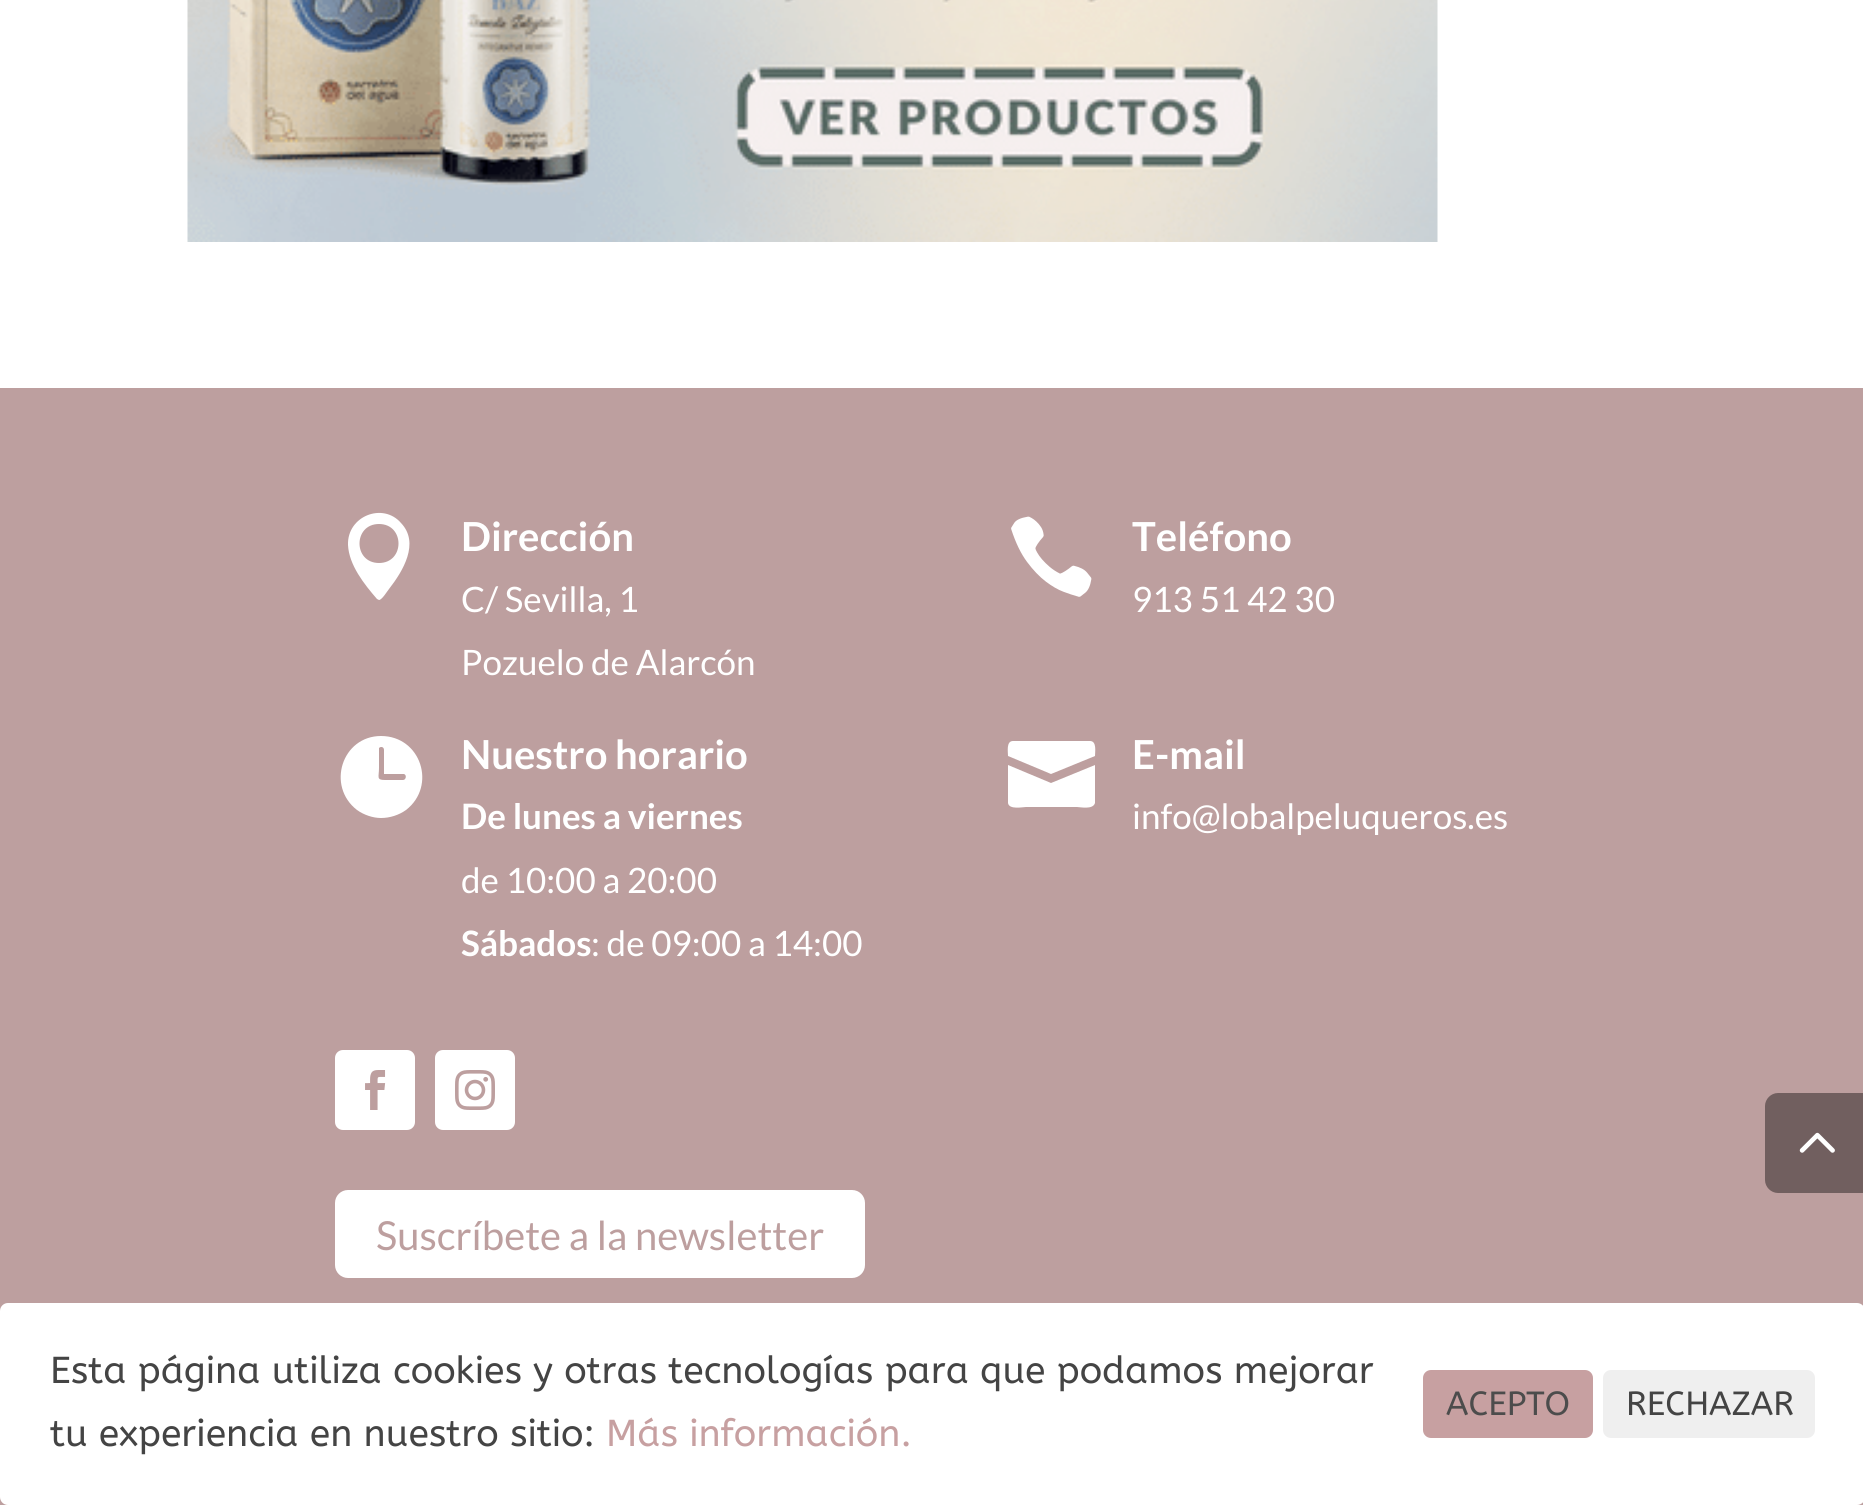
import math
import cairo



def rounded_rect(context, x, y, w, h, r):
    context.new_sub_path()
    for i, (u, v) in enumerate([(x + w - r, y + h - r), (x + r, y + h - r), (x + r, y + r), (x + w - r, y + r)]):
        context.arc(u, v, r, i * math.pi / 2, (i + 1) * math.pi / 2)
    context.close_path()


def draw_image(context, path, x, y, w, h):
    context.save()
    context.set_source_surface(cairo.ImageSurface.create_from_png(path), x, y)
    context.rectangle(x, y, w, h)
    context.fill()
    context.restore()


def draw(context):
    context.set_source_rgb(1, 1, 1)
    context.paint()
    draw_image(context, "images/1.png", 187, 0, 1251, 242)
    context.set_source_rgb(189 / 255, 159 / 255, 159 / 255)
    context.rectangle(0, 388, 1863, 1117)
    context.fill()
    context.set_source_rgb(1, 1, 1)
    context.new_path()
    context.move_to(377, 599)
    context.line_to(379, 600)
    context.curve_to(382, 600, 388, 590, 389, 589)
    context.curve_to(403, 571, 420, 543, 401, 523)
    context.curve_to(383, 502, 347, 516, 348, 545)
    context.curve_to(349, 565, 364, 584, 377, 599)
    context.close_path()
    context.move_to(379, 524)
    context.curve_to(405, 524, 405, 563, 379, 563)
    context.curve_to(353, 563, 353, 524, 379, 524)
    context.close_path()
    context.fill()
    draw_image(context, "images/2.png", 1011, 516, 81, 81)
    context.new_path()
    context.move_to(381, 736)
    context.curve_to(342, 736, 326, 786, 357, 810)
    context.curve_to(364, 815, 373, 818, 381, 818)
    context.curve_to(390, 818, 399, 815, 406, 810)
    context.curve_to(437, 786, 421, 736, 381, 736)
    context.close_path()
    context.move_to(403, 780)
    context.line_to(385, 780)
    context.curve_to(376, 780, 379, 777, 379, 768)
    context.line_to(379, 749)
    context.line_to(379, 748)
    context.curve_to(381, 746, 384, 747, 384, 750)
    context.line_to(384, 774)
    context.line_to(404, 774)
    context.curve_to(407, 775, 406, 780, 403, 780)
    context.close_path()
    context.fill()
    context.new_path()
    context.move_to(1090, 741)
    context.line_to(1013, 741)
    context.curve_to(1006, 741, 1008, 752, 1008, 756)
    context.line_to(1051, 774)
    context.line_to(1095, 756)
    context.curve_to(1095, 752, 1097, 741, 1090, 741)
    context.close_path()
    context.move_to(1008, 765)
    context.line_to(1008, 803)
    context.curve_to(1009, 810, 1023, 807, 1026, 807)
    context.line_to(1077, 807)
    context.curve_to(1080, 807, 1093, 810, 1095, 803)
    context.line_to(1095, 765)
    context.line_to(1051, 783)
    context.close_path()
    context.fill()
    rounded_rect(context, 335, 1050, 80, 80, 8)
    context.fill()
    draw_image(context, "images/3.png", 365, 1070, 21, 40)
    rounded_rect(context, 435, 1050, 80, 80, 8)
    context.fill()
    draw_image(context, "images/4.png", 455, 1070, 40, 40)
    rounded_rect(context, 335, 1190, 530, 88, 13)
    context.fill()
    context.set_source_rgb(113 / 255, 95 / 255, 95 / 255)
    context.new_path()
    context.move_to(1778, 1093)
    context.line_to(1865, 1093)
    context.line_to(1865, 1193)
    context.line_to(1778, 1193)
    context.curve_to(1771, 1193, 1765, 1187, 1765, 1180)
    context.line_to(1765, 1106)
    context.curve_to(1765, 1099, 1771, 1093, 1778, 1093)
    context.close_path()
    context.fill()
    draw_image(context, "images/5.png", 1799, 1132, 36, 21)
    context.set_source_rgb(1, 1, 1)
    rounded_rect(context, 0, 1303, 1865, 202, 8)
    context.fill()
    context.set_source_rgb(199 / 255, 160 / 255, 161 / 255)
    rounded_rect(context, 1423, 1370, 170, 68, 8)
    context.fill()
    context.set_source_rgb(239 / 255, 239 / 255, 239 / 255)
    rounded_rect(context, 1603, 1370, 212, 68, 8)
    context.fill()
    context.select_font_face("Lato", cairo.FontSlant.NORMAL, cairo.FontWeight.BOLD)
    context.set_font_size(40)
    context.set_source_rgb(1, 1, 1)
    context.move_to(461, 551)
    context.show_text("Dirección")
    context.select_font_face("Lato")
    context.set_font_size(35)
    context.move_to(461, 612)
    context.show_text("C/ Sevilla, 1")
    context.move_to(461, 675)
    context.show_text("Pozuelo de Alarcón")
    context.select_font_face("Lato", cairo.FontSlant.NORMAL, cairo.FontWeight.BOLD)
    context.set_font_size(40)
    context.move_to(1132, 551)
    context.show_text("Teléfono")
    context.select_font_face("Lato")
    context.set_font_size(35)
    context.move_to(1132, 612)
    context.show_text("913 51 42 30")
    context.select_font_face("Lato", cairo.FontSlant.NORMAL, cairo.FontWeight.BOLD)
    context.set_font_size(40)
    context.move_to(461, 769)
    context.show_text("Nuestro horario")
    context.set_font_size(35)
    context.move_to(461, 829)
    context.show_text("De lunes a viernes")
    context.select_font_face("Lato")
    context.move_to(461, 893)
    context.show_text("de 10:00 a 20:00")
    context.select_font_face("Lato", cairo.FontSlant.NORMAL, cairo.FontWeight.BOLD)
    context.move_to(461, 956)
    context.show_text("Sábados")
    context.select_font_face("Lato")
    context.move_to(591, 956)
    context.show_text(": de 09:00 a 14:00")
    context.select_font_face("Lato", cairo.FontSlant.NORMAL, cairo.FontWeight.BOLD)
    context.set_font_size(40)
    context.move_to(1132, 769)
    context.show_text("E-mail")
    context.select_font_face("Lato")
    context.set_font_size(35)
    context.move_to(1132, 829)
    context.show_text("info@lobalpeluqueros.es")
    context.set_font_size(40)
    context.set_source_rgb(189 / 255, 159 / 255, 159 / 255)
    context.move_to(376, 1250)
    context.show_text("Suscríbete a la newsletter")
    context.select_font_face("ABeeZee")
    context.set_font_size(37.5)
    context.set_source_rgb(68 / 255, 68 / 255, 68 / 255)
    context.move_to(50, 1383)
    context.show_text("Esta página utiliza cookies y otras tecnologías para que podamos mejorar")
    context.move_to(50, 1446)
    context.show_text("tu experiencia en nuestro sitio:")
    context.set_source_rgb(199 / 255, 160 / 255, 161 / 255)
    context.move_to(606, 1446)
    context.show_text("Más información.")
    context.set_font_size(33.5)
    context.set_source_rgb(76 / 255, 76 / 255, 76 / 255)
    context.move_to(1446, 1415)
    context.show_text("ACEPTO")
    context.set_source_rgb(68 / 255, 68 / 255, 68 / 255)
    context.move_to(1626, 1415)
    context.show_text("RECHAZAR")


surface = cairo.ImageSurface(cairo.Format.RGB24, 1863, 1505)
context = cairo.Context(surface)
options = cairo.FontOptions()
options.set_hint_metrics(cairo.HintMetrics.OFF)
options.set_hint_style(cairo.HintStyle.NONE)
context.set_font_options(options)
context.set_miter_limit(4)
draw(context)
surface.write_to_png("out.png")
